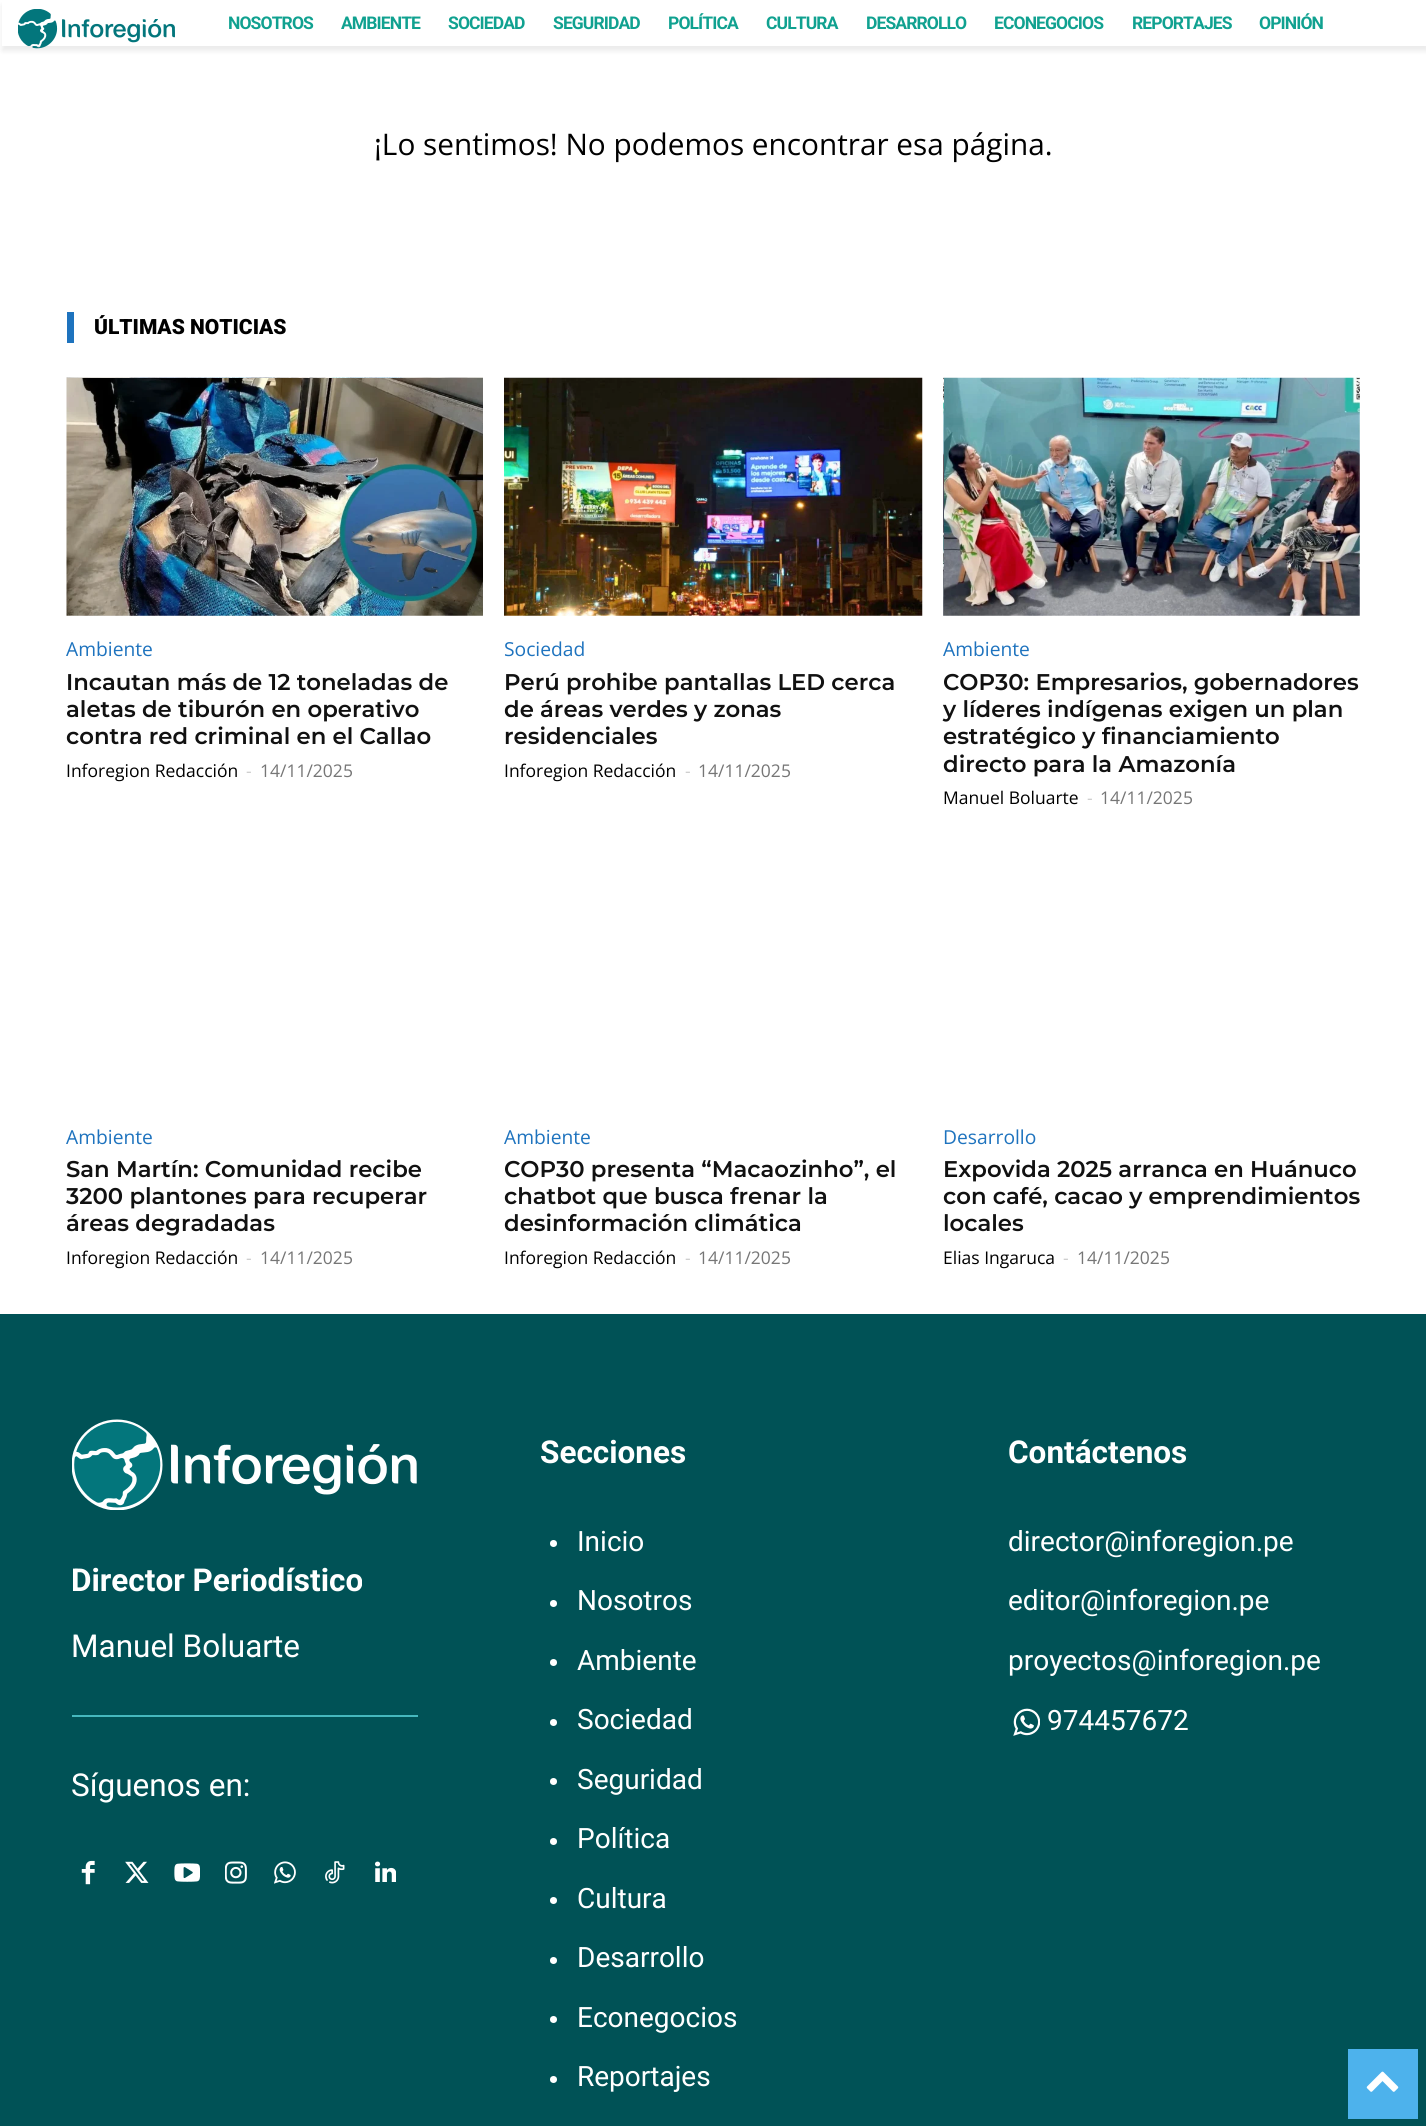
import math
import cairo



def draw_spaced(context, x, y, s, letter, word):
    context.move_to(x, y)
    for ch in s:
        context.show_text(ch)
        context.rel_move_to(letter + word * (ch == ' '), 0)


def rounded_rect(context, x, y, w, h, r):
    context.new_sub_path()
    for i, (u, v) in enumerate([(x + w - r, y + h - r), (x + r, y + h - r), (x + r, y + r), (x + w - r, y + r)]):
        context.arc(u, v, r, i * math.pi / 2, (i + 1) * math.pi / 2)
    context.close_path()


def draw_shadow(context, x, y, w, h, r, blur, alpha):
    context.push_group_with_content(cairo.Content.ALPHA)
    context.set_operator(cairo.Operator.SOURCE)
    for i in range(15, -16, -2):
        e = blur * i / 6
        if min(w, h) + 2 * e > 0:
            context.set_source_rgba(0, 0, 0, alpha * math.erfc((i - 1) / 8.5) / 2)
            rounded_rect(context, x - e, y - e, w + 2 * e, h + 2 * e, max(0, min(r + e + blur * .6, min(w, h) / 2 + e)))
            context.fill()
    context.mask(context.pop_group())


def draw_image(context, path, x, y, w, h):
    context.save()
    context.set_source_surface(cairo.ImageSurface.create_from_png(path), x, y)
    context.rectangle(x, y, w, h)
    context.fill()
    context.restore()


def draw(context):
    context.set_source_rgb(1, 1, 1)
    context.paint()
    context.save()
    context.set_fill_rule(cairo.FillRule.EVEN_ODD)
    context.new_path()
    context.move_to(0, 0)
    context.line_to(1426, 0)
    context.line_to(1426, 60)
    context.line_to(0, 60)
    context.close_path()
    context.move_to(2, 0)
    context.line_to(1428, 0)
    context.line_to(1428, 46)
    context.line_to(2, 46)
    context.close_path()
    context.clip()
    context.set_source_rgb(0, 0, 0)
    draw_shadow(context, 2, 5, 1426, 46, 0, 2.5, 0.08)
    context.restore()
    draw_image(context, "images/1.png", 18, 9, 157, 40)
    context.set_source_rgb(30 / 255, 115 / 255, 190 / 255)
    context.rectangle(67, 312, 7, 31)
    context.fill()
    draw_image(context, "images/2.png", 66, 377, 417, 239)
    draw_image(context, "images/3.png", 504, 377, 419, 239)
    draw_image(context, "images/4.png", 943, 377, 417, 239)
    context.set_source_rgb(0, 82 / 255, 86 / 255)
    context.rectangle(0, 1314, 1426, 812)
    context.fill()
    draw_image(context, "images/5.png", 72, 1419, 345, 91)
    context.set_source_rgb(70 / 255, 184 / 255, 190 / 255)
    context.rectangle(72, 1715, 346, 2)
    context.fill()
    draw_image(context, "images/6.png", 81, 1860, 14, 25)
    draw_image(context, "images/7.png", 125, 1861, 24, 22)
    draw_image(context, "images/8.png", 174, 1863, 26, 19)
    draw_image(context, "images/9.png", 225, 1861, 22, 23)
    draw_image(context, "images/10.png", 274, 1861, 22, 23)
    draw_image(context, "images/11.png", 325, 1861, 20, 23)
    draw_image(context, "images/12.png", 375, 1861, 21, 21)
    context.set_source_rgb(1, 1, 1)
    context.arc(553.5, 1543.5, 3.5, 0, 2 * math.pi)
    context.fill()
    context.arc(553.5, 1603.5, 3.5, 0, 2 * math.pi)
    context.fill()
    context.arc(553.5, 1662.5, 3.5, 0, 2 * math.pi)
    context.fill()
    context.arc(553.5, 1722.5, 3.5, 0, 2 * math.pi)
    context.fill()
    context.arc(553.5, 1781.5, 3.5, 0, 2 * math.pi)
    context.fill()
    context.arc(553.5, 1841.5, 3.5, 0, 2 * math.pi)
    context.fill()
    context.arc(553.5, 1900.5, 3.5, 0, 2 * math.pi)
    context.fill()
    context.arc(553.5, 1960.5, 3.5, 0, 2 * math.pi)
    context.fill()
    context.arc(553.5, 2019.5, 3.5, 0, 2 * math.pi)
    context.fill()
    context.arc(553.5, 2079.5, 3.5, 0, 2 * math.pi)
    context.fill()
    draw_image(context, "images/13.png", 1013, 1708, 27, 28)
    context.set_source_rgb(77 / 255, 178 / 255, 236 / 255)
    context.rectangle(1348, 2049, 70, 70)
    context.fill()
    draw_image(context, "images/14.png", 1366, 2071, 33, 21)
    context.select_font_face("Roboto", cairo.FontSlant.NORMAL, cairo.FontWeight.BOLD)
    context.set_font_size(17.5)
    context.set_source_rgb(16 / 255, 161 / 255, 144 / 255)
    draw_spaced(context, 228, 29, "NOSOTROS", -0.9, 0)
    draw_spaced(context, 341, 29, "AMBIENTE", -0.9, 0)
    draw_spaced(context, 448, 29, "SOCIEDAD", -0.9, 0)
    draw_spaced(context, 553, 29, "SEGURIDAD", -0.9, 0)
    draw_spaced(context, 668, 29, "POLÍTICA", -0.9, 0)
    draw_spaced(context, 766, 29, "CULTURA", -0.9, 0)
    draw_spaced(context, 866, 29, "DESARROLLO", -0.9, 0)
    draw_spaced(context, 994, 29, "ECONEGOCIOS", -0.9, 0)
    draw_spaced(context, 1132, 29, "REPORTAJES", -0.9, 0)
    draw_spaced(context, 1259, 29, "OPINIÓN", -0.9, 0)
    context.select_font_face("Open Sans")
    context.set_font_size(29.75)
    context.set_source_rgb(0, 0, 0)
    context.move_to(374, 155)
    context.show_text("¡Lo sentimos! No podemos encontrar esa página.")
    context.select_font_face("Roboto Black")
    context.set_font_size(21)
    context.move_to(94, 334)
    context.show_text("ÚLTIMAS NOTICIAS")
    context.select_font_face("Open Sans")
    context.set_font_size(19.25)
    context.set_source_rgb(30 / 255, 115 / 255, 190 / 255)
    context.move_to(66, 656)
    context.show_text("Ambiente")
    context.select_font_face("Montserrat SemiBold")
    context.set_font_size(22.75)
    context.set_source_rgb(17 / 255, 17 / 255, 17 / 255)
    context.move_to(66, 690)
    context.show_text("Incautan más de 12 toneladas de")
    context.move_to(66, 717)
    context.show_text("aletas de tiburón en operativo")
    context.move_to(66, 744)
    context.show_text("contra red criminal en el Callao")
    context.select_font_face("Open Sans")
    context.set_font_size(17.5)
    context.set_source_rgb(0, 0, 0)
    context.move_to(66, 777)
    context.show_text("Inforegion Redacción")
    context.set_source_rgb(204 / 255, 204 / 255, 204 / 255)
    context.move_to(246, 777)
    context.show_text("-")
    context.set_source_rgb(118 / 255, 118 / 255, 118 / 255)
    context.move_to(260, 777)
    context.show_text("14/11/2025")
    context.set_font_size(19.25)
    context.set_source_rgb(30 / 255, 115 / 255, 190 / 255)
    context.move_to(504, 656)
    context.show_text("Sociedad")
    context.select_font_face("Montserrat SemiBold")
    context.set_font_size(22.75)
    context.set_source_rgb(17 / 255, 17 / 255, 17 / 255)
    context.move_to(504, 690)
    context.show_text("Perú prohibe pantallas LED cerca")
    context.move_to(504, 717)
    context.show_text("de áreas verdes y zonas")
    context.move_to(504, 744)
    context.show_text("residenciales")
    context.select_font_face("Open Sans")
    context.set_font_size(17.5)
    context.set_source_rgb(0, 0, 0)
    context.move_to(504, 777)
    context.show_text("Inforegion Redacción")
    context.set_source_rgb(204 / 255, 204 / 255, 204 / 255)
    context.move_to(685, 777)
    context.show_text("-")
    context.set_source_rgb(118 / 255, 118 / 255, 118 / 255)
    context.move_to(698, 777)
    context.show_text("14/11/2025")
    context.set_font_size(19.25)
    context.set_source_rgb(30 / 255, 115 / 255, 190 / 255)
    context.move_to(943, 656)
    context.show_text("Ambiente")
    context.select_font_face("Montserrat SemiBold")
    context.set_font_size(22.75)
    context.set_source_rgb(17 / 255, 17 / 255, 17 / 255)
    context.move_to(943, 690)
    context.show_text("COP30: Empresarios, gobernadores")
    context.move_to(943, 717)
    context.show_text("y líderes indígenas exigen un plan")
    context.move_to(943, 744)
    context.show_text("estratégico y financiamiento")
    context.move_to(943, 772)
    context.show_text("directo para la Amazonía")
    context.select_font_face("Open Sans")
    context.set_font_size(17.5)
    context.set_source_rgb(0, 0, 0)
    context.move_to(943, 804)
    context.show_text("Manuel Boluarte")
    context.set_source_rgb(204 / 255, 204 / 255, 204 / 255)
    context.move_to(1087, 804)
    context.show_text("-")
    context.set_source_rgb(118 / 255, 118 / 255, 118 / 255)
    context.move_to(1100, 804)
    context.show_text("14/11/2025")
    context.set_font_size(19.25)
    context.set_source_rgb(30 / 255, 115 / 255, 190 / 255)
    context.move_to(66, 1144)
    context.show_text("Ambiente")
    context.select_font_face("Montserrat SemiBold")
    context.set_font_size(22.75)
    context.set_source_rgb(17 / 255, 17 / 255, 17 / 255)
    context.move_to(66, 1177)
    context.show_text("San Martín: Comunidad recibe")
    context.move_to(66, 1204)
    context.show_text("3200 plantones para recuperar")
    context.move_to(66, 1231)
    context.show_text("áreas degradadas")
    context.select_font_face("Open Sans")
    context.set_font_size(17.5)
    context.set_source_rgb(0, 0, 0)
    context.move_to(66, 1264)
    context.show_text("Inforegion Redacción")
    context.set_source_rgb(204 / 255, 204 / 255, 204 / 255)
    context.move_to(246, 1264)
    context.show_text("-")
    context.set_source_rgb(118 / 255, 118 / 255, 118 / 255)
    context.move_to(260, 1264)
    context.show_text("14/11/2025")
    context.set_font_size(19.25)
    context.set_source_rgb(30 / 255, 115 / 255, 190 / 255)
    context.move_to(504, 1144)
    context.show_text("Ambiente")
    context.select_font_face("Montserrat SemiBold")
    context.set_font_size(22.75)
    context.set_source_rgb(17 / 255, 17 / 255, 17 / 255)
    context.move_to(504, 1177)
    context.show_text("COP30 presenta “Macaozinho”, el")
    context.move_to(504, 1204)
    context.show_text("chatbot que busca frenar la")
    context.move_to(504, 1231)
    context.show_text("desinformación climática")
    context.select_font_face("Open Sans")
    context.set_font_size(17.5)
    context.set_source_rgb(0, 0, 0)
    context.move_to(504, 1264)
    context.show_text("Inforegion Redacción")
    context.set_source_rgb(204 / 255, 204 / 255, 204 / 255)
    context.move_to(685, 1264)
    context.show_text("-")
    context.set_source_rgb(118 / 255, 118 / 255, 118 / 255)
    context.move_to(698, 1264)
    context.show_text("14/11/2025")
    context.set_font_size(19.25)
    context.set_source_rgb(30 / 255, 115 / 255, 190 / 255)
    context.move_to(943, 1144)
    context.show_text("Desarrollo")
    context.select_font_face("Montserrat SemiBold")
    context.set_font_size(22.75)
    context.set_source_rgb(17 / 255, 17 / 255, 17 / 255)
    context.move_to(943, 1177)
    context.show_text("Expovida 2025 arranca en Huánuco")
    context.move_to(943, 1204)
    context.show_text("con café, cacao y emprendimientos")
    context.move_to(943, 1231)
    context.show_text("locales")
    context.select_font_face("Open Sans")
    context.set_font_size(17.5)
    context.set_source_rgb(0, 0, 0)
    context.move_to(943, 1264)
    context.show_text("Elias Ingaruca")
    context.set_source_rgb(204 / 255, 204 / 255, 204 / 255)
    context.move_to(1063, 1264)
    context.show_text("-")
    context.set_source_rgb(118 / 255, 118 / 255, 118 / 255)
    context.move_to(1077, 1264)
    context.show_text("14/11/2025")
    context.select_font_face("Roboto", cairo.FontSlant.NORMAL, cairo.FontWeight.BOLD)
    context.set_font_size(31.5)
    context.set_source_rgb(1, 1, 1)
    context.move_to(71, 1591)
    context.show_text("Director Periodístico")
    context.select_font_face("Roboto")
    context.move_to(71, 1657)
    context.show_text("Manuel Boluarte")
    context.move_to(71, 1796)
    context.show_text("Síguenos en:")
    context.select_font_face("Roboto", cairo.FontSlant.NORMAL, cairo.FontWeight.BOLD)
    context.move_to(540, 1463)
    context.show_text("Secciones")
    context.select_font_face("Roboto")
    context.set_font_size(28)
    context.move_to(577, 1551)
    context.show_text("Inicio")
    context.move_to(577, 1610)
    context.show_text("Nosotros")
    context.move_to(577, 1670)
    context.show_text("Ambiente")
    context.move_to(577, 1729)
    context.show_text("Sociedad")
    context.move_to(577, 1789)
    context.show_text("Seguridad")
    context.move_to(577, 1848)
    context.show_text("Política")
    context.move_to(577, 1908)
    context.show_text("Cultura")
    context.move_to(577, 1967)
    context.show_text("Desarrollo")
    context.move_to(577, 2027)
    context.show_text("Econegocios")
    context.move_to(577, 2086)
    context.show_text("Reportajes")
    context.select_font_face("Roboto", cairo.FontSlant.NORMAL, cairo.FontWeight.BOLD)
    context.set_font_size(31.5)
    context.move_to(1008, 1463)
    context.show_text("Contáctenos")
    context.select_font_face("Roboto")
    context.set_font_size(28)
    context.move_to(1008, 1551)
    context.show_text("director@inforegion.pe")
    context.move_to(1008, 1610)
    context.show_text("editor@inforegion.pe")
    context.move_to(1008, 1670)
    context.show_text("proyectos@inforegion.pe")
    context.move_to(1047, 1730)
    context.show_text("974457672")


surface = cairo.ImageSurface(cairo.Format.RGB24, 1426, 2126)
context = cairo.Context(surface)
options = cairo.FontOptions()
options.set_hint_metrics(cairo.HintMetrics.OFF)
options.set_hint_style(cairo.HintStyle.NONE)
context.set_font_options(options)
context.set_miter_limit(4)
draw(context)
surface.write_to_png("out.png")
